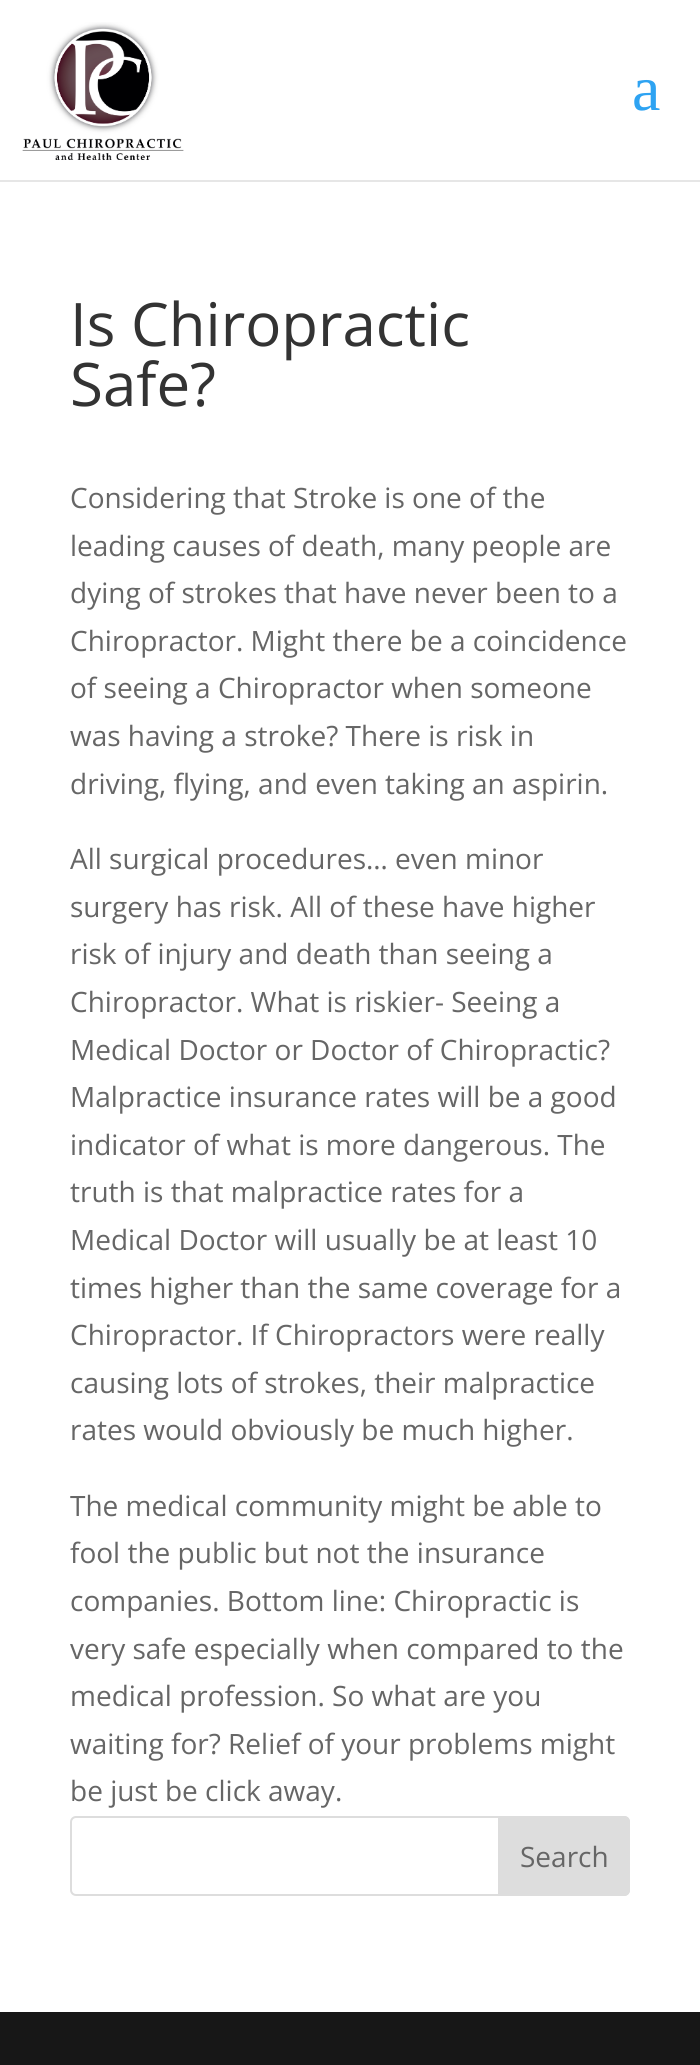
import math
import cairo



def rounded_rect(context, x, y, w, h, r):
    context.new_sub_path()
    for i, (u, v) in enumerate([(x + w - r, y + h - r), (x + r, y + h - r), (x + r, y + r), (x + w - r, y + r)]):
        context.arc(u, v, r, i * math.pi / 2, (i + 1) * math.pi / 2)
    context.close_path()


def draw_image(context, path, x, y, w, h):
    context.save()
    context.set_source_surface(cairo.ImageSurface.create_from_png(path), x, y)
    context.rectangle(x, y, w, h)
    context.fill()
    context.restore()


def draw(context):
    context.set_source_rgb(1, 1, 1)
    context.paint()
    context.set_source_rgb(230 / 255, 230 / 255, 230 / 255)
    context.rectangle(0, 180, 700, 2)
    context.fill()
    draw_image(context, "images/1.png", 22, 22, 162, 138)
    rounded_rect(context, 71, 1817, 558, 78, 5)
    context.set_source_rgb(221 / 255, 221 / 255, 221 / 255)
    context.stroke()
    context.new_path()
    context.move_to(499, 1817)
    context.line_to(624, 1817)
    context.curve_to(627, 1817, 629, 1819, 629, 1822)
    context.line_to(629, 1890)
    context.curve_to(629, 1893, 627, 1895, 624, 1895)
    context.line_to(499, 1895)
    context.close_path()
    context.fill_preserve()
    context.stroke()
    context.set_source_rgb(23 / 255, 23 / 255, 23 / 255)
    context.rectangle(0, 2012, 700, 53)
    context.fill()
    context.select_font_face("Liberation Serif")
    context.set_font_size(64)
    context.set_source_rgb(46 / 255, 163 / 255, 242 / 255)
    context.move_to(632, 110)
    context.show_text("a")
    context.select_font_face("Open Sans")
    context.set_font_size(60)
    context.set_source_rgb(51 / 255, 51 / 255, 51 / 255)
    context.move_to(70, 346)
    context.show_text("Is Chiropractic")
    context.move_to(70, 406)
    context.show_text("Safe?")
    context.set_font_size(28)
    context.set_source_rgb(102 / 255, 102 / 255, 102 / 255)
    context.move_to(70, 508)
    context.show_text("Considering that Stroke is one of the")
    context.move_to(70, 556)
    context.show_text("leading causes of death, many people are")
    context.move_to(70, 603)
    context.show_text("dying of strokes that have never been to a")
    context.move_to(70, 651)
    context.show_text("Chiropractor. Might there be a coincidence")
    context.move_to(70, 698)
    context.show_text("of seeing a Chiropractor when someone")
    context.move_to(70, 746)
    context.show_text("was having a stroke? There is risk in")
    context.move_to(70, 794)
    context.show_text("driving, flying, and even taking an aspirin.")
    context.move_to(70, 869)
    context.show_text("All surgical procedures… even minor")
    context.move_to(70, 917)
    context.show_text("surgery has risk. All of these have higher")
    context.move_to(70, 964)
    context.show_text("risk of injury and death than seeing a")
    context.move_to(70, 1012)
    context.show_text("Chiropractor. What is riskier- Seeing a")
    context.move_to(70, 1060)
    context.show_text("Medical Doctor or Doctor of Chiropractic?")
    context.move_to(70, 1107)
    context.show_text("Malpractice insurance rates will be a good")
    context.move_to(70, 1155)
    context.show_text("indicator of what is more dangerous. The")
    context.move_to(70, 1202)
    context.show_text("truth is that malpractice rates for a")
    context.move_to(70, 1250)
    context.show_text("Medical Doctor will usually be at least 10")
    context.move_to(70, 1298)
    context.show_text("times higher than the same coverage for a")
    context.move_to(70, 1345)
    context.show_text("Chiropractor. If Chiropractors were really")
    context.move_to(70, 1393)
    context.show_text("causing lots of strokes, their malpractice")
    context.move_to(70, 1440)
    context.show_text("rates would obviously be much higher.")
    context.move_to(70, 1516)
    context.show_text("The medical community might be able to")
    context.move_to(70, 1563)
    context.show_text("fool the public but not the insurance")
    context.move_to(70, 1611)
    context.show_text("companies. Bottom line: Chiropractic is")
    context.move_to(70, 1659)
    context.show_text("very safe especially when compared to the")
    context.move_to(70, 1706)
    context.show_text("medical profession. So what are you")
    context.move_to(70, 1754)
    context.show_text("waiting for? Relief of your problems might")
    context.move_to(70, 1801)
    context.show_text("be just be click away.")
    context.move_to(520, 1867)
    context.show_text("Search")


surface = cairo.ImageSurface(cairo.Format.RGB24, 700, 2065)
context = cairo.Context(surface)
options = cairo.FontOptions()
options.set_hint_metrics(cairo.HintMetrics.OFF)
options.set_hint_style(cairo.HintStyle.NONE)
context.set_font_options(options)
context.set_miter_limit(4)
draw(context)
surface.write_to_png("out.png")
